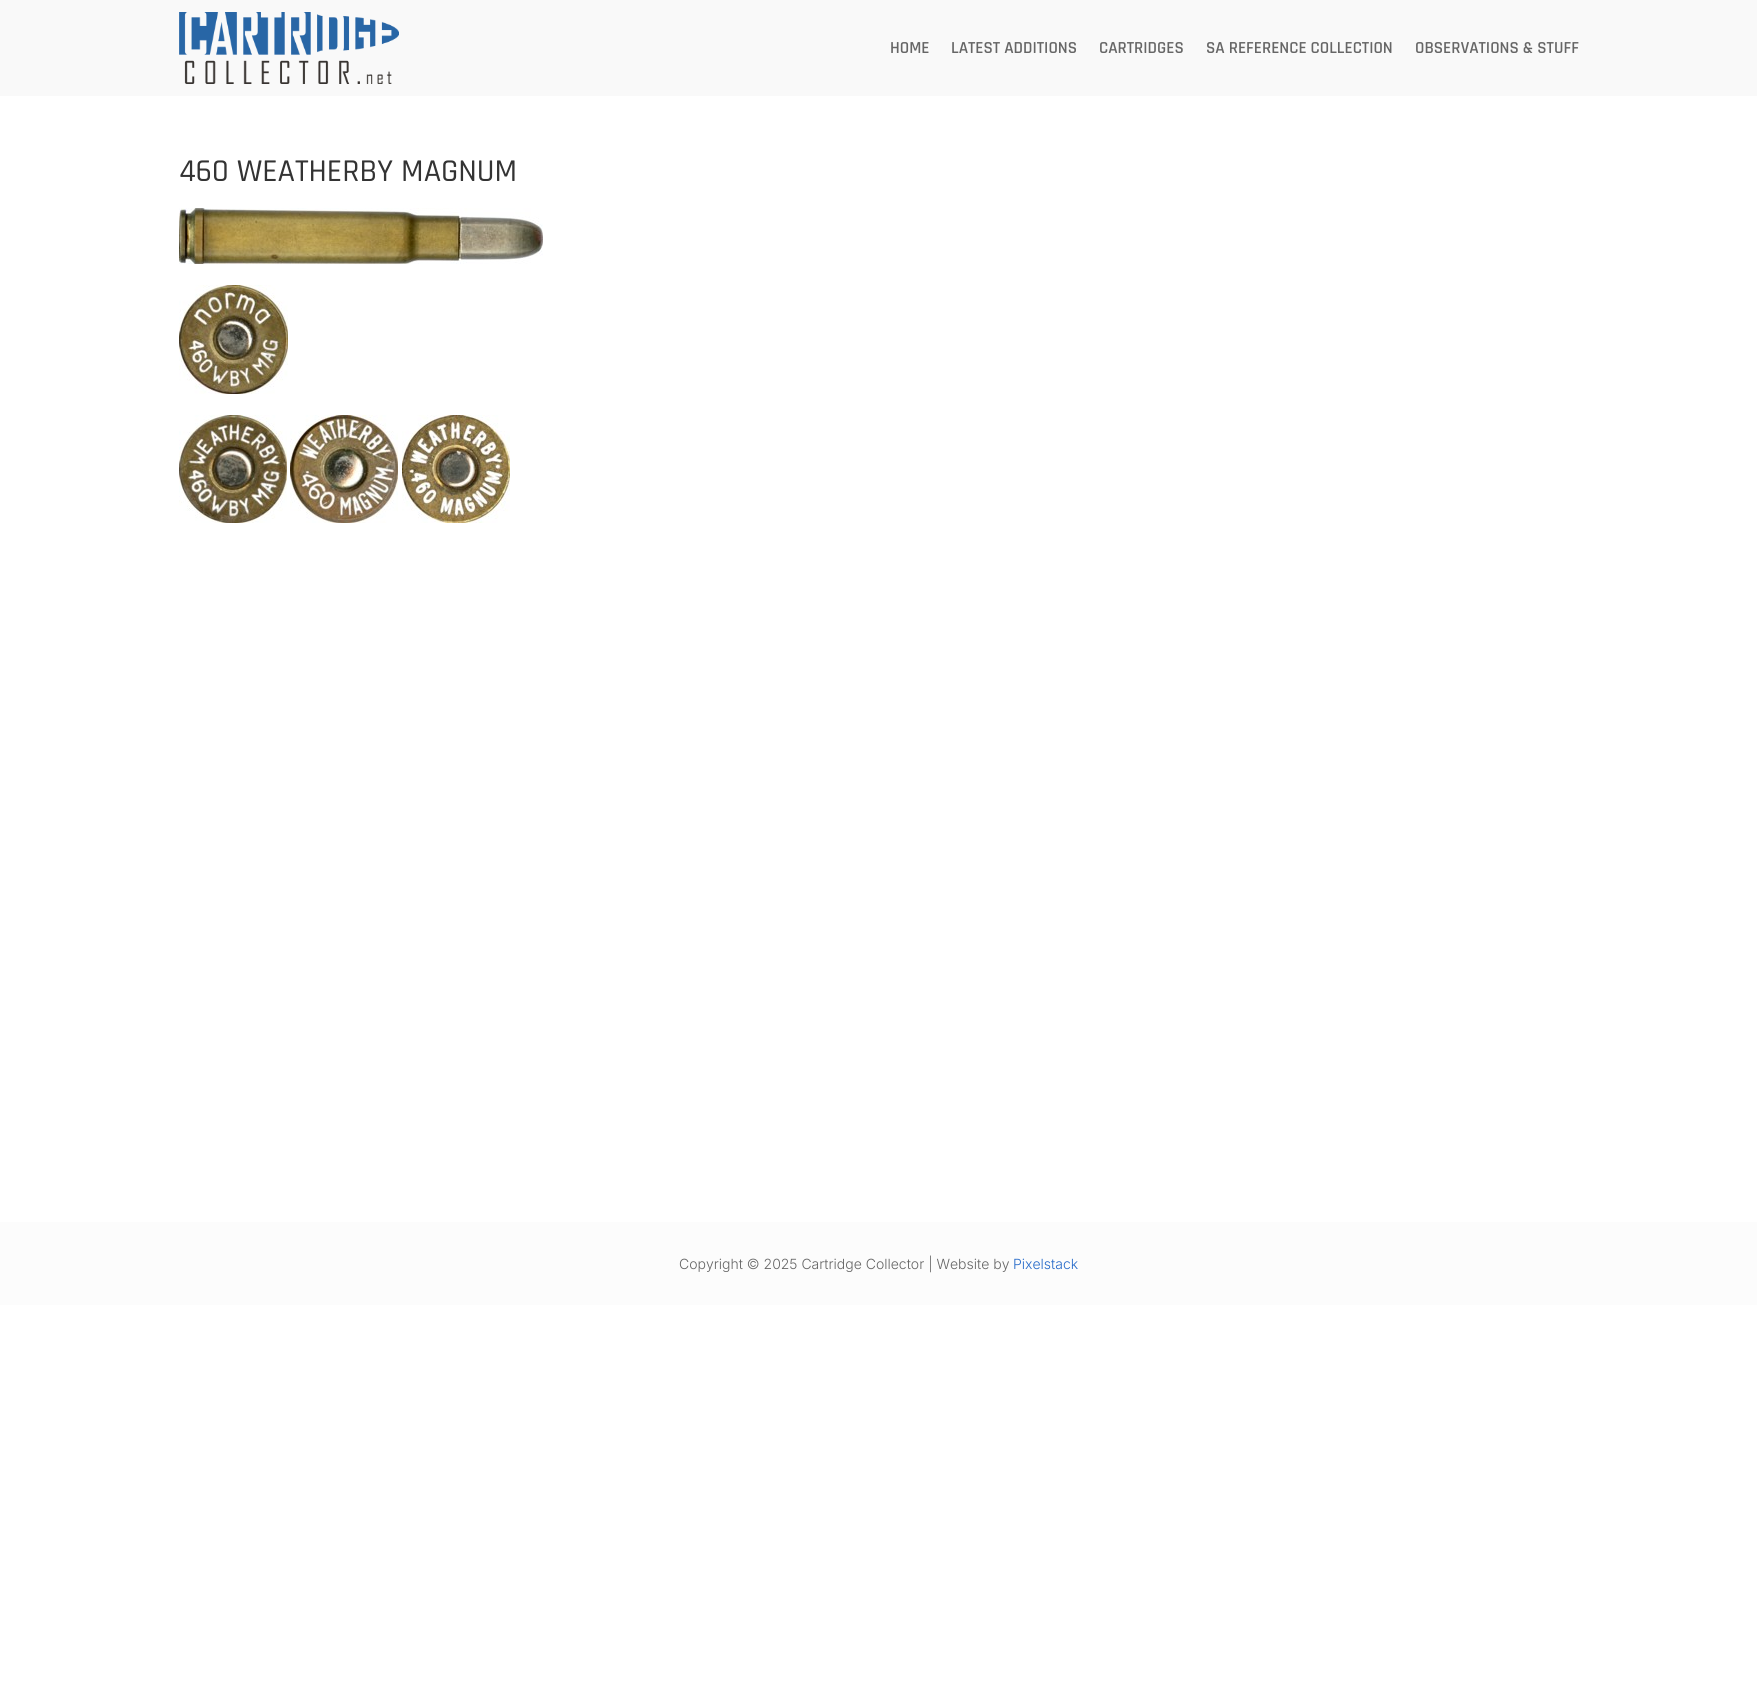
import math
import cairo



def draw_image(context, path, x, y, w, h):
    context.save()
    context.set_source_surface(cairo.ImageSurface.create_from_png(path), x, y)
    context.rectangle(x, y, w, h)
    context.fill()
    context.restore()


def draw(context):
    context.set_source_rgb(1, 1, 1)
    context.paint()
    context.set_source_rgb(249 / 255, 249 / 255, 249 / 255)
    context.rectangle(0, 0, 1757, 96)
    context.fill()
    draw_image(context, "images/1.png", 179, 12, 220, 72)
    draw_image(context, "images/2.png", 179, 208, 364, 56)
    draw_image(context, "images/3.png", 179, 285, 109, 109)
    draw_image(context, "images/4.png", 179, 415, 108, 108)
    draw_image(context, "images/5.png", 290, 415, 108, 108)
    draw_image(context, "images/6.png", 402, 415, 108, 108)
    context.set_source_rgb(252 / 255, 252 / 255, 252 / 255)
    context.rectangle(0, 1222, 1757, 83)
    context.fill()
    context.select_font_face("Rajdhani SemiBold")
    context.set_font_size(17)
    context.set_source_rgb(102 / 255, 102 / 255, 102 / 255)
    context.move_to(890, 53)
    context.show_text("HOME")
    context.move_to(951, 53)
    context.show_text("LATEST ADDITIONS")
    context.move_to(1099, 53)
    context.show_text("CARTRIDGES")
    context.move_to(1206, 53)
    context.show_text("SA REFERENCE COLLECTION")
    context.move_to(1415, 53)
    context.show_text("OBSERVATIONS & STUFF")
    context.select_font_face("Rajdhani Medium")
    context.set_font_size(32)
    context.set_source_rgb(51 / 255, 51 / 255, 51 / 255)
    context.move_to(179, 181)
    context.show_text("460 WEATHERBY MAGNUM")
    context.select_font_face("Inter Light")
    context.set_font_size(14)
    context.set_source_rgb(102 / 255, 102 / 255, 102 / 255)
    context.move_to(679, 1269)
    context.show_text("Copyright © 2025 Cartridge Collector | Website by")
    context.set_source_rgb(38 / 255, 106 / 255, 201 / 255)
    context.move_to(1013, 1269)
    context.show_text("Pixelstack")


surface = cairo.ImageSurface(cairo.Format.RGB24, 1757, 1706)
context = cairo.Context(surface)
options = cairo.FontOptions()
options.set_hint_metrics(cairo.HintMetrics.OFF)
options.set_hint_style(cairo.HintStyle.NONE)
context.set_font_options(options)
context.set_miter_limit(4)
draw(context)
surface.write_to_png("out.png")
